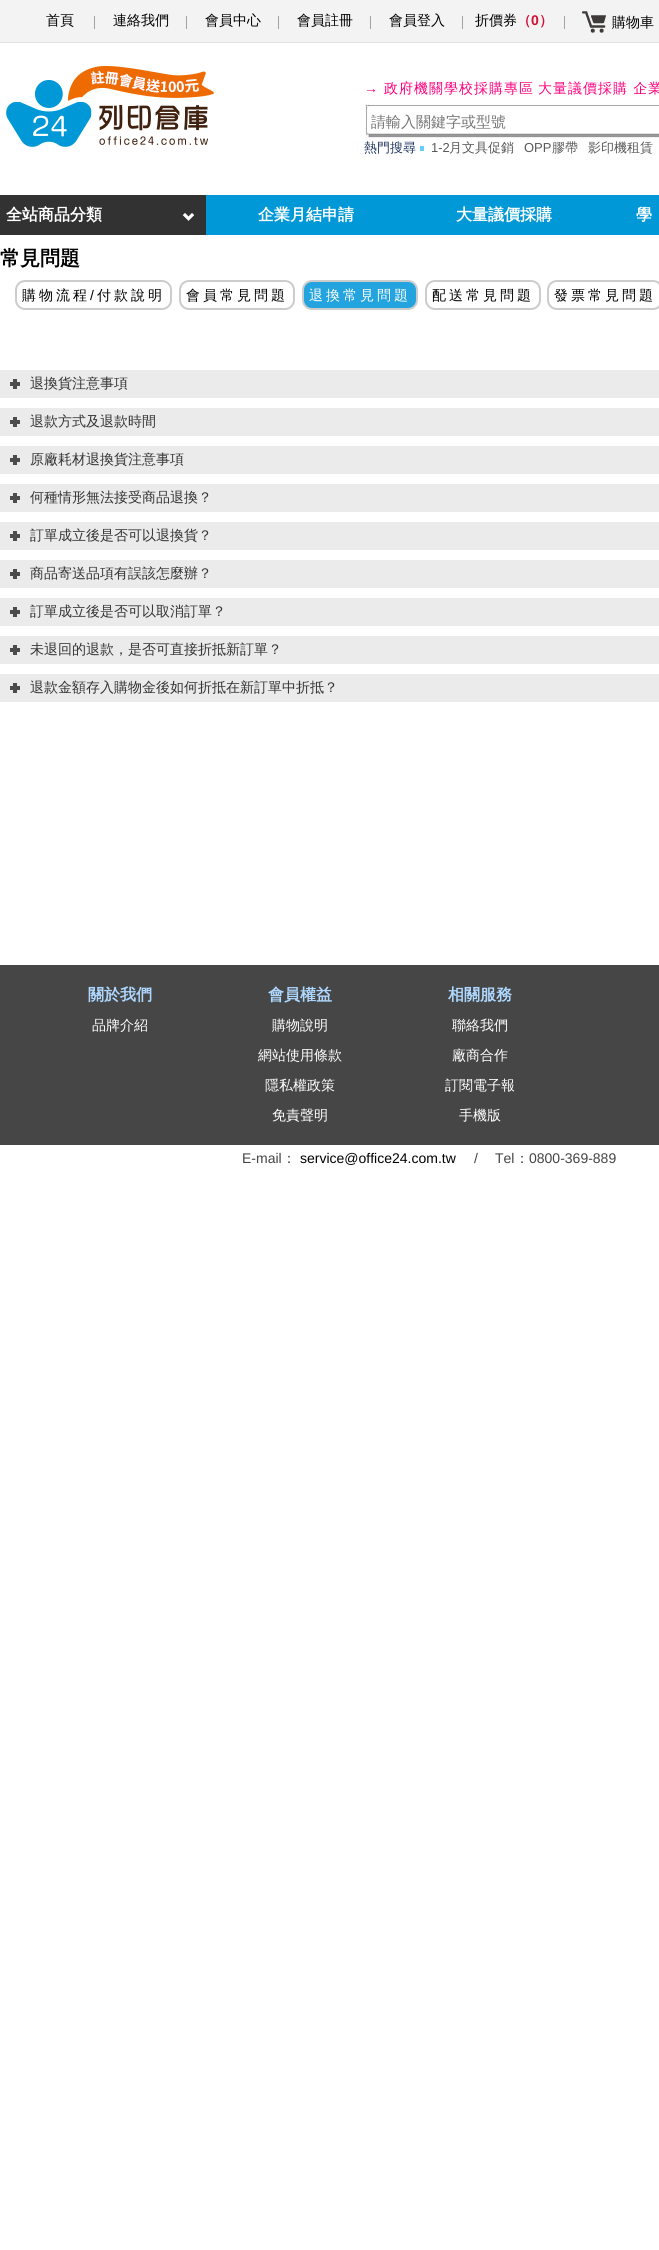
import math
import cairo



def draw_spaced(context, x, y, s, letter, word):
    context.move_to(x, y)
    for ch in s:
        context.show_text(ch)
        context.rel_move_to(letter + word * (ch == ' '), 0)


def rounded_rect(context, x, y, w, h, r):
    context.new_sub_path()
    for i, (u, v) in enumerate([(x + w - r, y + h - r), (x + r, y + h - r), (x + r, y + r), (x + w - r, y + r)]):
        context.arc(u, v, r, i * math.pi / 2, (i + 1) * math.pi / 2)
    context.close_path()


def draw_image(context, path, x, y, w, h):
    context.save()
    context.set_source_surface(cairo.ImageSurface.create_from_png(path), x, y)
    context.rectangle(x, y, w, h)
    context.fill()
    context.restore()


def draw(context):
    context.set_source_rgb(1, 1, 1)
    context.paint()
    context.set_source_rgb(243 / 255, 243 / 255, 243 / 255)
    context.rectangle(0, 0, 659, 42)
    context.fill()
    context.set_source_rgb(225 / 255, 225 / 255, 225 / 255)
    context.rectangle(0, 42, 659, 1)
    context.fill()
    context.set_source_rgb(163 / 255, 163 / 255, 163 / 255)
    context.rectangle(94, 16, 1, 13)
    context.fill()
    context.rectangle(186, 16, 1, 13)
    context.fill()
    context.rectangle(278, 16, 1, 13)
    context.fill()
    context.rectangle(370, 16, 1, 13)
    context.fill()
    context.rectangle(462, 16, 1, 13)
    context.fill()
    context.rectangle(564, 16, 1, 13)
    context.fill()
    draw_image(context, "images/1.png", 582, 11, 24, 22)
    draw_image(context, "images/2.png", 6, 66, 208, 81)
    draw_image(context, "images/3.png", 365, 104, 294, 35)
    context.set_source_rgb(102 / 255, 205 / 255, 1)
    context.rectangle(420, 146, 4, 5)
    context.fill()
    context.set_source_rgb(0, 152 / 255, 215 / 255)
    context.rectangle(206, 195, 453, 40)
    context.fill()
    context.set_source_rgb(50 / 255, 50 / 255, 50 / 255)
    context.rectangle(0, 195, 206, 40)
    context.fill()
    draw_image(context, "images/4.png", 182, 213, 12, 8)
    rounded_rect(context, 16, 281, 155, 28, 9)
    context.set_source_rgb(204 / 255, 204 / 255, 204 / 255)
    context.stroke()
    rounded_rect(context, 180, 281, 114, 28, 9)
    context.stroke()
    context.set_source_rgb(35 / 255, 164 / 255, 222 / 255)
    rounded_rect(context, 303, 281, 114, 28, 9)
    context.fill_preserve()
    context.set_source_rgb(204 / 255, 204 / 255, 204 / 255)
    context.stroke()
    rounded_rect(context, 426, 281, 114, 28, 9)
    context.stroke()
    rounded_rect(context, 548, 281, 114, 28, 9)
    context.stroke()
    context.set_source_rgb(235 / 255, 235 / 255, 235 / 255)
    context.rectangle(0, 370, 659, 28)
    context.fill()
    context.set_source_rgb(76 / 255, 76 / 255, 76 / 255)
    context.rectangle(10, 382, 10, 4)
    context.fill()
    context.rectangle(13, 379, 4, 10)
    context.fill()
    context.set_source_rgb(235 / 255, 235 / 255, 235 / 255)
    context.rectangle(0, 408, 659, 28)
    context.fill()
    context.set_source_rgb(76 / 255, 76 / 255, 76 / 255)
    context.rectangle(10, 420, 10, 4)
    context.fill()
    context.rectangle(13, 417, 4, 10)
    context.fill()
    context.set_source_rgb(235 / 255, 235 / 255, 235 / 255)
    context.rectangle(0, 446, 659, 28)
    context.fill()
    context.set_source_rgb(76 / 255, 76 / 255, 76 / 255)
    context.rectangle(10, 458, 10, 4)
    context.fill()
    context.rectangle(13, 455, 4, 10)
    context.fill()
    context.set_source_rgb(235 / 255, 235 / 255, 235 / 255)
    context.rectangle(0, 484, 659, 28)
    context.fill()
    context.set_source_rgb(76 / 255, 76 / 255, 76 / 255)
    context.rectangle(10, 496, 10, 4)
    context.fill()
    context.rectangle(13, 493, 4, 10)
    context.fill()
    context.set_source_rgb(235 / 255, 235 / 255, 235 / 255)
    context.rectangle(0, 522, 659, 28)
    context.fill()
    context.set_source_rgb(76 / 255, 76 / 255, 76 / 255)
    context.rectangle(10, 534, 10, 4)
    context.fill()
    context.rectangle(13, 531, 4, 10)
    context.fill()
    context.set_source_rgb(235 / 255, 235 / 255, 235 / 255)
    context.rectangle(0, 560, 659, 28)
    context.fill()
    context.set_source_rgb(76 / 255, 76 / 255, 76 / 255)
    context.rectangle(10, 572, 10, 4)
    context.fill()
    context.rectangle(13, 569, 4, 10)
    context.fill()
    context.set_source_rgb(235 / 255, 235 / 255, 235 / 255)
    context.rectangle(0, 598, 659, 28)
    context.fill()
    context.set_source_rgb(76 / 255, 76 / 255, 76 / 255)
    context.rectangle(10, 610, 10, 4)
    context.fill()
    context.rectangle(13, 607, 4, 10)
    context.fill()
    context.set_source_rgb(235 / 255, 235 / 255, 235 / 255)
    context.rectangle(0, 636, 659, 28)
    context.fill()
    context.set_source_rgb(76 / 255, 76 / 255, 76 / 255)
    context.rectangle(10, 648, 10, 4)
    context.fill()
    context.rectangle(13, 645, 4, 10)
    context.fill()
    context.set_source_rgb(235 / 255, 235 / 255, 235 / 255)
    context.rectangle(0, 674, 659, 28)
    context.fill()
    context.set_source_rgb(76 / 255, 76 / 255, 76 / 255)
    context.rectangle(10, 686, 10, 4)
    context.fill()
    context.rectangle(13, 683, 4, 10)
    context.fill()
    context.set_source_rgb(70 / 255, 70 / 255, 70 / 255)
    context.rectangle(0, 965, 659, 180)
    context.fill()
    context.select_font_face("WenQuanYi Zen Hei Medium")
    context.set_font_size(14)
    context.set_source_rgb(0, 0, 0)
    context.move_to(46, 25)
    context.show_text("首頁")
    context.move_to(113, 25)
    context.show_text("連絡我們")
    context.move_to(205, 25)
    context.show_text("會員中心")
    context.move_to(297, 25)
    context.show_text("會員註冊")
    context.move_to(389, 25)
    context.show_text("會員登入")
    context.move_to(475, 25)
    context.show_text("折價券")
    context.select_font_face("WenQuanYi Zen Hei", cairo.FontSlant.NORMAL, cairo.FontWeight.BOLD)
    context.set_source_rgb(212 / 255, 13 / 255, 52 / 255)
    context.move_to(517, 25)
    context.show_text("（")
    context.select_font_face("Liberation Sans", cairo.FontSlant.NORMAL, cairo.FontWeight.BOLD)
    context.move_to(531, 25)
    context.show_text("0")
    context.select_font_face("WenQuanYi Zen Hei", cairo.FontSlant.NORMAL, cairo.FontWeight.BOLD)
    context.move_to(539, 25)
    context.show_text("）")
    context.select_font_face("WenQuanYi Zen Hei Medium")
    context.set_source_rgb(0, 0, 0)
    context.move_to(612, 27)
    context.show_text("購物車")
    context.select_font_face("Liberation Sans")
    context.set_source_rgb(1, 0, 124 / 255)
    draw_spaced(context, 364, 93, "→", 1, 0)
    context.select_font_face("WenQuanYi Zen Hei Medium")
    draw_spaced(context, 384, 93, "政府機關學校採購專區", 1, 0)
    draw_spaced(context, 538, 93, "大量議價採購 企業", 1, 0)
    context.set_font_size(15)
    context.set_source_rgb(117 / 255, 117 / 255, 117 / 255)
    context.move_to(371, 127)
    context.show_text("請輸入關鍵字或型號")
    context.set_font_size(13)
    context.set_source_rgb(33 / 255, 55 / 255, 96 / 255)
    context.move_to(364, 152)
    context.show_text("熱門搜尋")
    context.select_font_face("Liberation Sans")
    context.set_source_rgb(88 / 255, 88 / 255, 88 / 255)
    context.move_to(431, 152)
    context.show_text("1-2")
    context.select_font_face("WenQuanYi Zen Hei Medium")
    context.move_to(449, 152)
    context.show_text("月文具促銷")
    context.select_font_face("Liberation Sans")
    context.move_to(524, 152)
    context.show_text("OPP")
    context.select_font_face("WenQuanYi Zen Hei Medium")
    context.move_to(552, 152)
    context.show_text("膠帶")
    context.move_to(588, 152)
    context.show_text("影印機租賃")
    context.select_font_face("WenQuanYi Zen Hei", cairo.FontSlant.NORMAL, cairo.FontWeight.BOLD)
    context.set_font_size(16)
    context.set_source_rgb(1, 1, 1)
    context.move_to(6, 220)
    context.show_text("全站商品分類")
    context.move_to(258, 220)
    context.show_text("企業月結申請")
    context.move_to(456, 220)
    context.show_text("大量議價採購")
    context.move_to(636, 220)
    context.show_text("學")
    context.set_font_size(20)
    context.set_source_rgb(0, 0, 0)
    context.move_to(0, 265)
    context.show_text("常見問題")
    context.select_font_face("WenQuanYi Zen Hei Medium")
    context.set_font_size(14)
    draw_spaced(context, 22, 300, "購物流程", 3, 0)
    context.select_font_face("Liberation Sans")
    draw_spaced(context, 90, 300, "/", 3, 0)
    context.select_font_face("WenQuanYi Zen Hei Medium")
    draw_spaced(context, 97, 300, "付款說明", 3, 0)
    draw_spaced(context, 186, 300, "會員常見問題", 3, 0)
    context.set_source_rgb(1, 1, 1)
    draw_spaced(context, 309, 300, "退換常見問題", 3, 0)
    context.set_source_rgb(0, 0, 0)
    draw_spaced(context, 432, 300, "配送常見問題", 3, 0)
    draw_spaced(context, 554, 300, "發票常見問題", 3, 0)
    context.set_source_rgb(51 / 255, 51 / 255, 51 / 255)
    context.move_to(30, 388)
    context.show_text("退換貨注意事項")
    context.move_to(30, 426)
    context.show_text("退款方式及退款時間")
    context.move_to(30, 464)
    context.show_text("原廠耗材退換貨注意事項")
    context.move_to(30, 502)
    context.show_text("何種情形無法接受商品退換？")
    context.move_to(30, 540)
    context.show_text("訂單成立後是否可以退換貨？")
    context.move_to(30, 578)
    context.show_text("商品寄送品項有誤該怎麼辦？")
    context.move_to(30, 616)
    context.show_text("訂單成立後是否可以取消訂單？")
    context.move_to(30, 654)
    context.show_text("未退回的退款，是否可直接折抵新訂單？")
    context.move_to(30, 692)
    context.show_text("退款金額存入購物金後如何折抵在新訂單中折抵？")
    context.select_font_face("WenQuanYi Zen Hei", cairo.FontSlant.NORMAL, cairo.FontWeight.BOLD)
    context.set_font_size(16)
    context.set_source_rgb(174 / 255, 216 / 255, 1)
    context.move_to(88, 1000)
    context.show_text("關於我們")
    context.select_font_face("WenQuanYi Zen Hei Medium")
    context.set_font_size(14)
    context.set_source_rgb(1, 1, 1)
    context.move_to(92, 1030)
    context.show_text("品牌介紹")
    context.select_font_face("WenQuanYi Zen Hei", cairo.FontSlant.NORMAL, cairo.FontWeight.BOLD)
    context.set_font_size(16)
    context.set_source_rgb(174 / 255, 216 / 255, 1)
    context.move_to(268, 1000)
    context.show_text("會員權益")
    context.select_font_face("WenQuanYi Zen Hei Medium")
    context.set_font_size(14)
    context.set_source_rgb(1, 1, 1)
    context.move_to(272, 1030)
    context.show_text("購物說明")
    context.move_to(258, 1060)
    context.show_text("網站使用條款")
    context.move_to(265, 1090)
    context.show_text("隱私權政策")
    context.move_to(272, 1120)
    context.show_text("免責聲明")
    context.select_font_face("WenQuanYi Zen Hei", cairo.FontSlant.NORMAL, cairo.FontWeight.BOLD)
    context.set_font_size(16)
    context.set_source_rgb(174 / 255, 216 / 255, 1)
    context.move_to(448, 1000)
    context.show_text("相關服務")
    context.select_font_face("WenQuanYi Zen Hei Medium")
    context.set_font_size(14)
    context.set_source_rgb(1, 1, 1)
    context.move_to(452, 1030)
    context.show_text("聯絡我們")
    context.move_to(452, 1060)
    context.show_text("廠商合作")
    context.move_to(445, 1090)
    context.show_text("訂閱電子報")
    context.move_to(459, 1120)
    context.show_text("手機版")
    context.select_font_face("Liberation Sans")
    context.set_source_rgb(68 / 255, 68 / 255, 68 / 255)
    context.move_to(242, 1163)
    context.show_text("E-mail")
    context.select_font_face("WenQuanYi Zen Hei Medium")
    context.move_to(282, 1163)
    context.show_text("：")
    context.select_font_face("Liberation Sans")
    context.set_source_rgb(0, 0, 0)
    context.move_to(300, 1163)
    context.show_text("service@office24.com.tw")
    context.set_source_rgb(68 / 255, 68 / 255, 68 / 255)
    context.move_to(474, 1163)
    context.show_text("/")
    context.move_to(495, 1163)
    context.show_text("Tel")
    context.select_font_face("WenQuanYi Zen Hei Medium")
    context.move_to(515, 1163)
    context.show_text("：")
    context.select_font_face("Liberation Sans")
    context.move_to(529, 1163)
    context.show_text("0800-369-889")


surface = cairo.ImageSurface(cairo.Format.RGB24, 659, 2250)
context = cairo.Context(surface)
options = cairo.FontOptions()
options.set_hint_metrics(cairo.HintMetrics.OFF)
options.set_hint_style(cairo.HintStyle.NONE)
context.set_font_options(options)
context.set_miter_limit(4)
draw(context)
surface.write_to_png("out.png")
